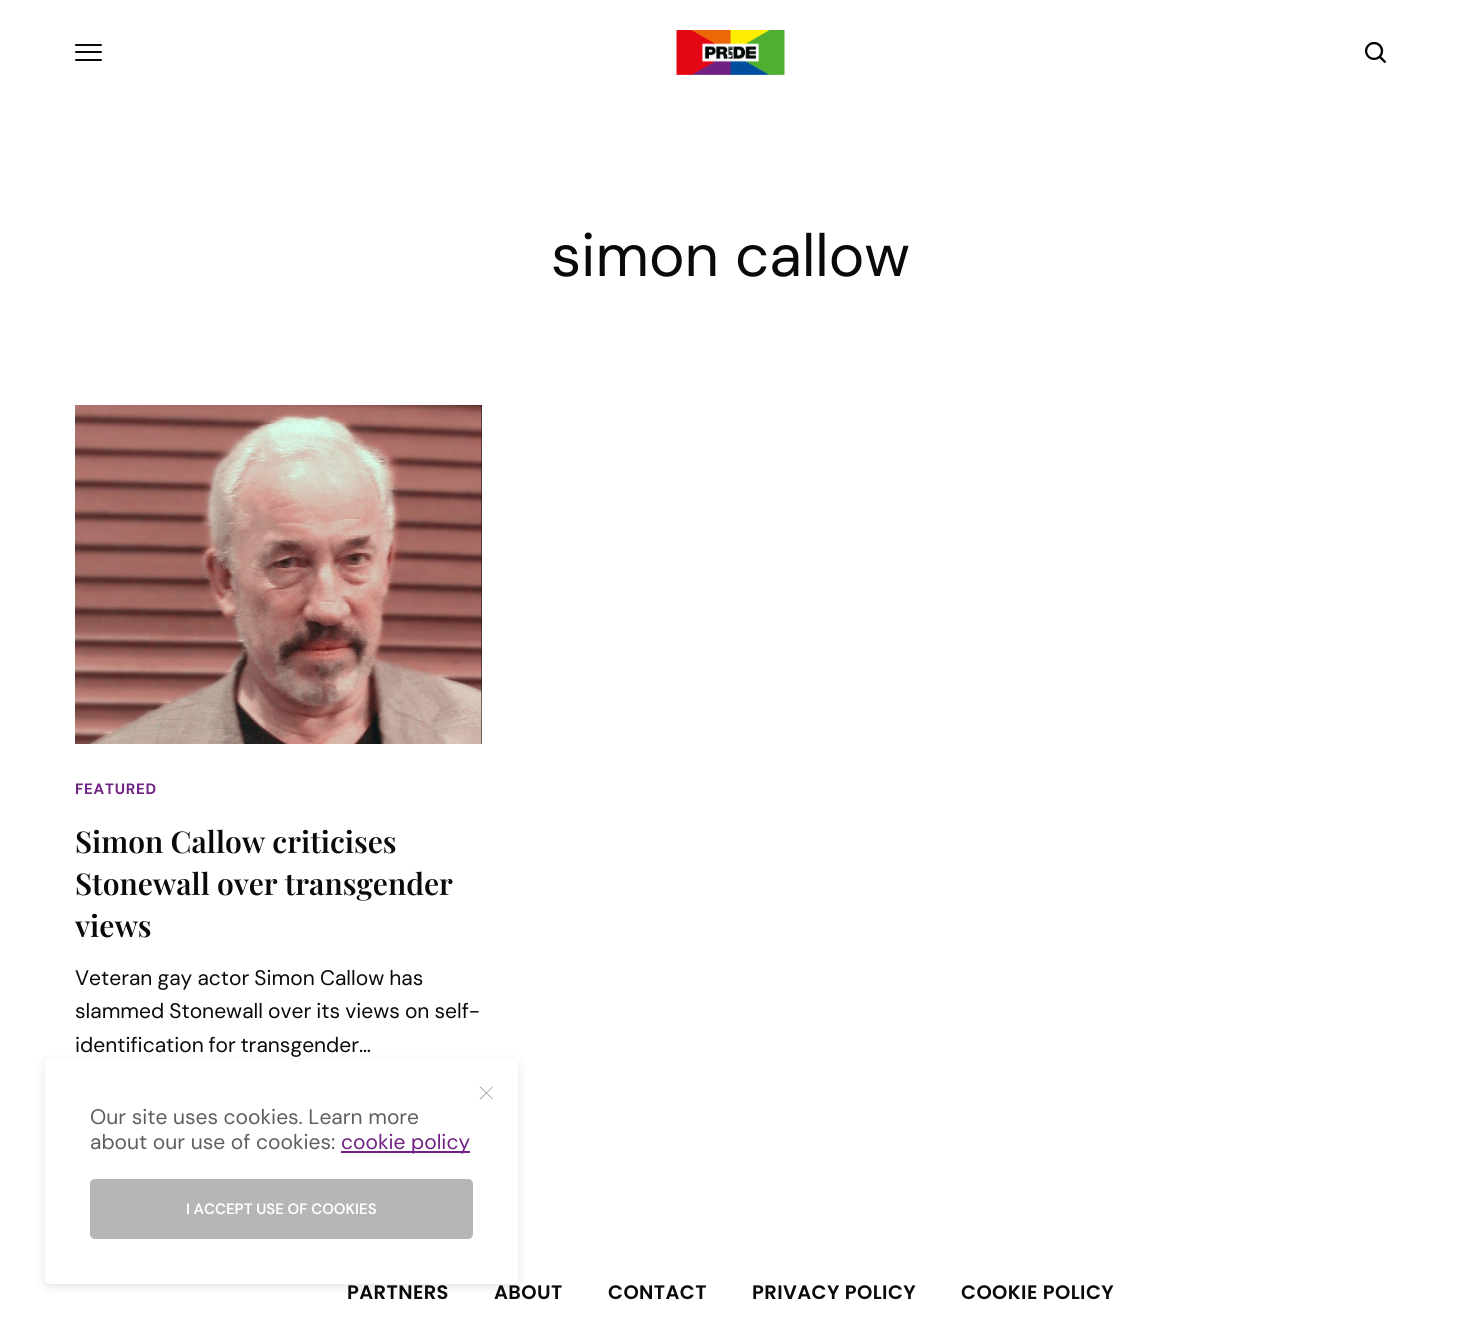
import math
import cairo



def draw_spaced(context, x, y, s, letter, word):
    context.move_to(x, y)
    for ch in s:
        context.show_text(ch)
        context.rel_move_to(letter + word * (ch == ' '), 0)


def rounded_rect(context, x, y, w, h, r):
    context.new_sub_path()
    for i, (u, v) in enumerate([(x + w - r, y + h - r), (x + r, y + h - r), (x + r, y + r), (x + w - r, y + r)]):
        context.arc(u, v, r, i * math.pi / 2, (i + 1) * math.pi / 2)
    context.close_path()


def draw_shadow(context, x, y, w, h, r, blur, alpha):
    context.push_group_with_content(cairo.Content.ALPHA)
    context.set_operator(cairo.Operator.SOURCE)
    for i in range(15, -16, -2):
        e = blur * i / 6
        if min(w, h) + 2 * e > 0:
            context.set_source_rgba(0, 0, 0, alpha * math.erfc((i - 1) / 8.5) / 2)
            rounded_rect(context, x - e, y - e, w + 2 * e, h + 2 * e, max(0, min(r + e + blur * .6, min(w, h) / 2 + e)))
            context.fill()
    context.mask(context.pop_group())


def draw_image(context, path, x, y, w, h):
    context.save()
    context.set_source_surface(cairo.ImageSurface.create_from_png(path), x, y)
    context.rectangle(x, y, w, h)
    context.fill()
    context.restore()


def draw(context):
    context.set_source_rgb(1, 1, 1)
    context.paint()
    context.set_source_rgb(10 / 255, 10 / 255, 10 / 255)
    rounded_rect(context, 75, 44, 27, 2, 1)
    context.fill()
    rounded_rect(context, 75, 51, 27, 2, 1)
    context.fill()
    rounded_rect(context, 75, 59, 27, 2, 1)
    context.fill()
    draw_image(context, "images/1.png", 676, 30, 109, 45)
    draw_image(context, "images/2.png", 1365, 42, 21, 21)
    context.rectangle(481, 405, 1, 339)
    context.fill()
    draw_image(context, "images/3.png", 75, 405, 407, 339)
    context.set_source_rgb(0, 0, 0)
    draw_shadow(context, 45, 1062, 473, 225, 5, 5, 0.1)
    context.set_source_rgb(1, 1, 1)
    rounded_rect(context, 45, 1059, 473, 225, 5)
    context.fill()
    context.set_source_rgb(163 / 255, 163 / 255, 163 / 255)
    context.new_path()
    context.move_to(480.5, 1086.5)
    context.line_to(493, 1099)
    context.line_to(492.5, 1099.5)
    context.line_to(479.5, 1087)
    context.close_path()
    context.fill()
    context.new_path()
    context.move_to(479.5, 1099)
    context.line_to(492.5, 1086.5)
    context.line_to(493, 1087)
    context.line_to(480.5, 1099.5)
    context.close_path()
    context.fill()
    context.set_source_rgb(112 / 255, 34 / 255, 131 / 255)
    context.rectangle(341, 1151, 129, 2)
    context.fill()
    context.set_source_rgb(182 / 255, 182 / 255, 182 / 255)
    rounded_rect(context, 90, 1179, 383, 60, 5)
    context.fill()
    context.select_font_face("DM Sans")
    context.set_font_size(60)
    context.set_source_rgb(10 / 255, 10 / 255, 10 / 255)
    context.move_to(551, 276)
    context.show_text("simon callow")
    context.select_font_face("DM Sans", cairo.FontSlant.NORMAL, cairo.FontWeight.BOLD)
    context.set_font_size(15)
    context.set_source_rgb(112 / 255, 34 / 255, 131 / 255)
    draw_spaced(context, 75, 794, "FEATURED", 0.75, 0)
    context.select_font_face("Playfair Display SemiBold")
    context.set_font_size(30)
    context.set_source_rgb(10 / 255, 10 / 255, 10 / 255)
    context.move_to(75, 853)
    context.show_text("Simon Callow criticises")
    context.move_to(75, 895)
    context.show_text("Stonewall over transgender")
    context.move_to(75, 937)
    context.show_text("views")
    context.select_font_face("DM Sans")
    context.set_font_size(21)
    draw_spaced(context, 75, 985, "Veteran gay actor Simon Callow has", 0, -0.5)
    draw_spaced(context, 75, 1018, "slammed Stonewall over its views on self-", 0, -0.5)
    draw_spaced(context, 75, 1052, "identification for transgender…", 0, -1)
    context.set_source_rgb(94 / 255, 94 / 255, 94 / 255)
    context.move_to(90, 1124)
    context.show_text("Our site uses cookies. Learn more")
    context.move_to(90, 1149)
    context.show_text("about our use of cookies:")
    context.set_source_rgb(112 / 255, 34 / 255, 131 / 255)
    context.move_to(341, 1149)
    context.show_text("cookie policy")
    context.select_font_face("DM Sans SemiBold")
    context.set_font_size(15)
    context.set_source_rgb(1, 1, 1)
    context.move_to(186, 1214)
    context.show_text("I ACCEPT USE OF COOKIES")
    context.select_font_face("Poppins SemiBold")
    context.set_font_size(19.5)
    context.set_source_rgb(10 / 255, 10 / 255, 10 / 255)
    draw_spaced(context, 347, 1299, "PARTNERS", 0.4, 0)
    draw_spaced(context, 494, 1299, "ABOUT", 0.4, 0)
    draw_spaced(context, 608, 1299, "CONTACT", 0.4, 0)
    draw_spaced(context, 752, 1299, "PRIVACY POLICY", 0.4, 0)
    draw_spaced(context, 961, 1299, "COOKIE POLICY", 0.4, 0)


surface = cairo.ImageSurface(cairo.Format.RGB24, 1461, 1328)
context = cairo.Context(surface)
options = cairo.FontOptions()
options.set_hint_metrics(cairo.HintMetrics.OFF)
options.set_hint_style(cairo.HintStyle.NONE)
context.set_font_options(options)
context.set_miter_limit(4)
draw(context)
surface.write_to_png("out.png")
